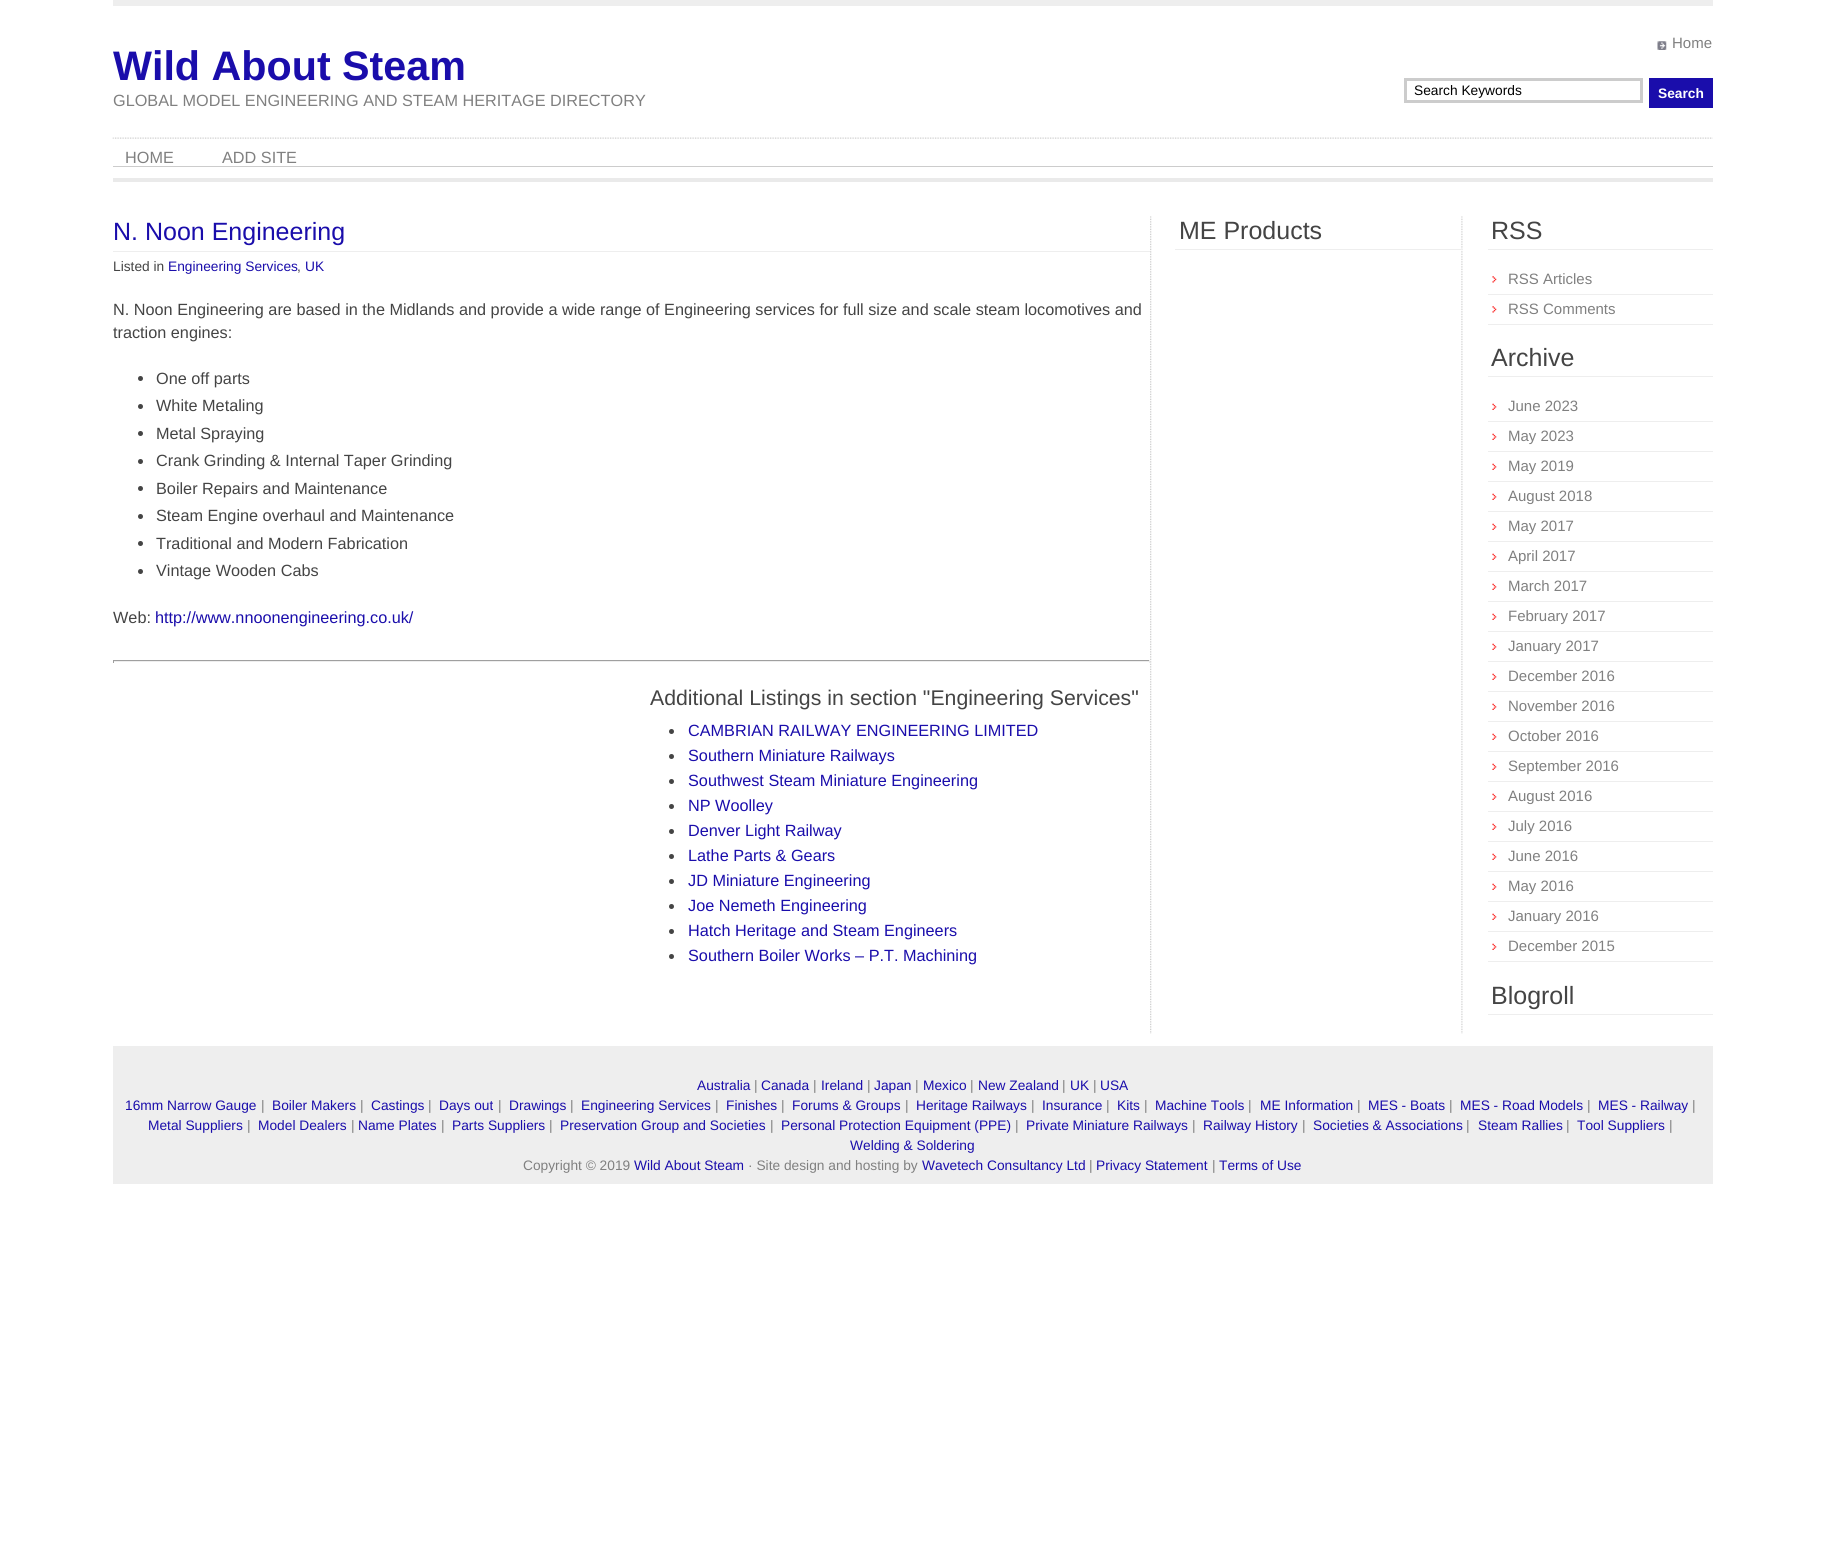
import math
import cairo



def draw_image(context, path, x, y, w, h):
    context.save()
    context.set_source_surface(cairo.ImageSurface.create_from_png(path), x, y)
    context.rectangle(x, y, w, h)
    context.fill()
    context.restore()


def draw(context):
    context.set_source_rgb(1, 1, 1)
    context.paint()
    context.set_source_rgb(238 / 255, 238 / 255, 238 / 255)
    context.rectangle(113, 0, 1600, 6)
    context.fill()
    context.set_source_rgb(234 / 255, 234 / 255, 234 / 255)
    context.rectangle(113, 178, 1600, 4)
    context.fill()
    draw_image(context, "images/1.png", 1657, 41, 10, 9)
    context.rectangle(1405.5, 79.5, 236, 22)
    context.set_source_rgb(204 / 255, 204 / 255, 204 / 255)
    context.set_line_width(3)
    context.stroke()
    context.set_source_rgb(26 / 255, 13 / 255, 171 / 255)
    context.rectangle(1649, 78, 64, 30)
    context.fill()
    draw_image(context, "images/2.png", 112, 137, 1601, 2)
    context.set_source_rgb(204 / 255, 204 / 255, 204 / 255)
    context.rectangle(113, 166, 1600, 1)
    context.fill()
    draw_image(context, "images/3.png", 1150, 216, 313, 818)
    context.set_source_rgb(238 / 255, 238 / 255, 238 / 255)
    context.rectangle(113, 251, 1037, 1)
    context.fill()
    context.set_source_rgb(68 / 255, 68 / 255, 68 / 255)
    context.arc(140.5, 378.5, 2.5, 0, 2 * math.pi)
    context.fill()
    context.arc(140.5, 406.5, 2.5, 0, 2 * math.pi)
    context.fill()
    context.arc(140.5, 433.5, 2.5, 0, 2 * math.pi)
    context.fill()
    context.arc(140.5, 461.5, 2.5, 0, 2 * math.pi)
    context.fill()
    context.arc(140.5, 488.5, 2.5, 0, 2 * math.pi)
    context.fill()
    context.arc(140.5, 516.5, 2.5, 0, 2 * math.pi)
    context.fill()
    context.arc(140.5, 543.5, 2.5, 0, 2 * math.pi)
    context.fill()
    context.arc(140.5, 571.5, 2.5, 0, 2 * math.pi)
    context.fill()
    context.set_source_rgb(159 / 255, 159 / 255, 159 / 255)
    context.rectangle(113, 660, 1037, 1)
    context.fill()
    context.set_source_rgb(238 / 255, 238 / 255, 238 / 255)
    context.rectangle(1149, 660, 1, 3)
    context.fill()
    context.rectangle(113, 661, 1037, 1)
    context.fill()
    context.set_source_rgb(159 / 255, 159 / 255, 159 / 255)
    context.rectangle(113, 660, 1, 3)
    context.fill()
    context.set_source_rgb(68 / 255, 68 / 255, 68 / 255)
    context.arc(671.5, 731.5, 2.5, 0, 2 * math.pi)
    context.fill()
    context.arc(671.5, 756.5, 2.5, 0, 2 * math.pi)
    context.fill()
    context.arc(671.5, 781.5, 2.5, 0, 2 * math.pi)
    context.fill()
    context.arc(671.5, 806.5, 2.5, 0, 2 * math.pi)
    context.fill()
    context.arc(671.5, 831.5, 2.5, 0, 2 * math.pi)
    context.fill()
    context.arc(671.5, 856.5, 2.5, 0, 2 * math.pi)
    context.fill()
    context.arc(671.5, 881.5, 2.5, 0, 2 * math.pi)
    context.fill()
    context.arc(671.5, 906.5, 2.5, 0, 2 * math.pi)
    context.fill()
    context.arc(671.5, 931.5, 2.5, 0, 2 * math.pi)
    context.fill()
    context.arc(671.5, 956.5, 2.5, 0, 2 * math.pi)
    context.fill()
    context.set_source_rgb(238 / 255, 238 / 255, 238 / 255)
    context.rectangle(1175, 249, 288, 1)
    context.fill()
    context.rectangle(1488, 249, 225, 1)
    context.fill()
    context.rectangle(1488, 294, 225, 1)
    context.fill()
    draw_image(context, "images/4.png", 1492, 276, 5, 7)
    context.rectangle(1488, 324, 225, 1)
    context.fill()
    draw_image(context, "images/4.png", 1492, 306, 5, 7)
    context.rectangle(1488, 376, 225, 1)
    context.fill()
    context.rectangle(1488, 421, 225, 1)
    context.fill()
    draw_image(context, "images/5.png", 1492, 403, 5, 7)
    context.rectangle(1488, 451, 225, 1)
    context.fill()
    draw_image(context, "images/5.png", 1492, 433, 5, 7)
    context.rectangle(1488, 481, 225, 1)
    context.fill()
    draw_image(context, "images/5.png", 1492, 463, 5, 7)
    context.rectangle(1488, 511, 225, 1)
    context.fill()
    draw_image(context, "images/5.png", 1492, 493, 5, 7)
    context.rectangle(1488, 541, 225, 1)
    context.fill()
    draw_image(context, "images/5.png", 1492, 523, 5, 7)
    context.rectangle(1488, 571, 225, 1)
    context.fill()
    draw_image(context, "images/5.png", 1492, 553, 5, 7)
    context.rectangle(1488, 601, 225, 1)
    context.fill()
    draw_image(context, "images/5.png", 1492, 583, 5, 7)
    context.rectangle(1488, 631, 225, 1)
    context.fill()
    draw_image(context, "images/5.png", 1492, 613, 5, 7)
    context.rectangle(1488, 661, 225, 1)
    context.fill()
    draw_image(context, "images/5.png", 1492, 643, 5, 7)
    context.rectangle(1488, 691, 225, 1)
    context.fill()
    draw_image(context, "images/5.png", 1492, 673, 5, 7)
    context.rectangle(1488, 721, 225, 1)
    context.fill()
    draw_image(context, "images/5.png", 1492, 703, 5, 7)
    context.rectangle(1488, 751, 225, 1)
    context.fill()
    draw_image(context, "images/5.png", 1492, 733, 5, 7)
    context.rectangle(1488, 781, 225, 1)
    context.fill()
    draw_image(context, "images/5.png", 1492, 763, 5, 7)
    context.rectangle(1488, 811, 225, 1)
    context.fill()
    draw_image(context, "images/5.png", 1492, 793, 5, 7)
    context.rectangle(1488, 841, 225, 1)
    context.fill()
    draw_image(context, "images/5.png", 1492, 823, 5, 7)
    context.rectangle(1488, 871, 225, 1)
    context.fill()
    draw_image(context, "images/5.png", 1492, 853, 5, 7)
    context.rectangle(1488, 901, 225, 1)
    context.fill()
    draw_image(context, "images/5.png", 1492, 883, 5, 7)
    context.rectangle(1488, 931, 225, 1)
    context.fill()
    draw_image(context, "images/5.png", 1492, 913, 5, 7)
    context.rectangle(1488, 961, 225, 1)
    context.fill()
    draw_image(context, "images/5.png", 1492, 943, 5, 7)
    context.rectangle(1488, 1014, 225, 1)
    context.fill()
    context.rectangle(113, 1046, 1600, 138)
    context.fill()
    context.select_font_face("Liberation Sans")
    context.set_font_size(15)
    context.set_source_rgb(128 / 255, 128 / 255, 128 / 255)
    context.move_to(1672, 48)
    context.show_text("Home")
    context.select_font_face("Liberation Sans", cairo.FontSlant.NORMAL, cairo.FontWeight.BOLD)
    context.set_font_size(41.25)
    context.set_source_rgb(26 / 255, 13 / 255, 171 / 255)
    context.move_to(113, 80)
    context.show_text("Wild About Steam")
    context.select_font_face("Liberation Sans")
    context.set_font_size(16.25)
    context.set_source_rgb(128 / 255, 128 / 255, 128 / 255)
    context.move_to(113, 106)
    context.show_text("GLOBAL MODEL ENGINEERING AND STEAM HERITAGE DIRECTORY")
    context.set_font_size(13.75)
    context.set_source_rgb(0, 0, 0)
    context.move_to(1414, 95)
    context.show_text("Search Keywords")
    context.select_font_face("Liberation Sans", cairo.FontSlant.NORMAL, cairo.FontWeight.BOLD)
    context.set_source_rgb(1, 1, 1)
    context.move_to(1658, 98)
    context.show_text("Search")
    context.select_font_face("Liberation Sans")
    context.set_font_size(16.25)
    context.set_source_rgb(128 / 255, 128 / 255, 128 / 255)
    context.move_to(125, 163)
    context.show_text("HOME")
    context.move_to(222, 163)
    context.show_text("ADD SITE")
    context.set_font_size(25)
    context.set_source_rgb(26 / 255, 13 / 255, 171 / 255)
    context.move_to(113, 240)
    context.show_text("N. Noon Engineering")
    context.set_font_size(13.75)
    context.set_source_rgb(68 / 255, 68 / 255, 68 / 255)
    context.move_to(113, 271)
    context.show_text("Listed in")
    context.set_source_rgb(26 / 255, 13 / 255, 171 / 255)
    context.move_to(168, 271)
    context.show_text("Engineering Services")
    context.set_source_rgb(68 / 255, 68 / 255, 68 / 255)
    context.move_to(297, 271)
    context.show_text(",")
    context.set_source_rgb(26 / 255, 13 / 255, 171 / 255)
    context.move_to(305, 271)
    context.show_text("UK")
    context.set_font_size(16.25)
    context.set_source_rgb(68 / 255, 68 / 255, 68 / 255)
    context.move_to(113, 315)
    context.show_text("N. Noon Engineering are based in the Midlands and provide a wide range of Engineering services for full size and scale steam locomotives and")
    context.move_to(113, 338)
    context.show_text("traction engines:")
    context.move_to(156, 384)
    context.show_text("One off parts")
    context.move_to(156, 411)
    context.show_text("White Metaling")
    context.move_to(156, 439)
    context.show_text("Metal Spraying")
    context.move_to(156, 466)
    context.show_text("Crank Grinding & Internal Taper Grinding")
    context.move_to(156, 494)
    context.show_text("Boiler Repairs and Maintenance")
    context.move_to(156, 521)
    context.show_text("Steam Engine overhaul and Maintenance")
    context.move_to(156, 549)
    context.show_text("Traditional and Modern Fabrication")
    context.move_to(156, 576)
    context.show_text("Vintage Wooden Cabs")
    context.move_to(113, 623)
    context.show_text("Web:")
    context.set_source_rgb(26 / 255, 13 / 255, 171 / 255)
    context.move_to(155, 623)
    context.show_text("http://www.nnoonengineering.co.uk/")
    context.set_font_size(21.25)
    context.set_source_rgb(68 / 255, 68 / 255, 68 / 255)
    context.move_to(650, 705)
    context.show_text("Additional Listings in section \"Engineering Services\"")
    context.set_font_size(16.25)
    context.set_source_rgb(26 / 255, 13 / 255, 171 / 255)
    context.move_to(688, 736)
    context.show_text("CAMBRIAN RAILWAY ENGINEERING LIMITED")
    context.move_to(688, 761)
    context.show_text("Southern Miniature Railways")
    context.move_to(688, 786)
    context.show_text("Southwest Steam Miniature Engineering")
    context.move_to(688, 811)
    context.show_text("NP Woolley")
    context.move_to(688, 836)
    context.show_text("Denver Light Railway")
    context.move_to(688, 861)
    context.show_text("Lathe Parts & Gears")
    context.move_to(688, 886)
    context.show_text("JD Miniature Engineering")
    context.move_to(688, 911)
    context.show_text("Joe Nemeth Engineering")
    context.move_to(688, 936)
    context.show_text("Hatch Heritage and Steam Engineers")
    context.move_to(688, 961)
    context.show_text("Southern Boiler Works – P.T. Machining")
    context.set_font_size(25)
    context.set_source_rgb(68 / 255, 68 / 255, 68 / 255)
    context.move_to(1179, 239)
    context.show_text("ME Products")
    context.move_to(1491, 239)
    context.show_text("RSS")
    context.set_font_size(15)
    context.set_source_rgb(128 / 255, 128 / 255, 128 / 255)
    context.move_to(1508, 284)
    context.show_text("RSS Articles")
    context.move_to(1508, 314)
    context.show_text("RSS Comments")
    context.set_font_size(25)
    context.set_source_rgb(68 / 255, 68 / 255, 68 / 255)
    context.move_to(1491, 366)
    context.show_text("Archive")
    context.set_font_size(15)
    context.set_source_rgb(128 / 255, 128 / 255, 128 / 255)
    context.move_to(1508, 411)
    context.show_text("June 2023")
    context.move_to(1508, 441)
    context.show_text("May 2023")
    context.move_to(1508, 471)
    context.show_text("May 2019")
    context.move_to(1508, 501)
    context.show_text("August 2018")
    context.move_to(1508, 531)
    context.show_text("May 2017")
    context.move_to(1508, 561)
    context.show_text("April 2017")
    context.move_to(1508, 591)
    context.show_text("March 2017")
    context.move_to(1508, 621)
    context.show_text("February 2017")
    context.move_to(1508, 651)
    context.show_text("January 2017")
    context.move_to(1508, 681)
    context.show_text("December 2016")
    context.move_to(1508, 711)
    context.show_text("November 2016")
    context.move_to(1508, 741)
    context.show_text("October 2016")
    context.move_to(1508, 771)
    context.show_text("September 2016")
    context.move_to(1508, 801)
    context.show_text("August 2016")
    context.move_to(1508, 831)
    context.show_text("July 2016")
    context.move_to(1508, 861)
    context.show_text("June 2016")
    context.move_to(1508, 891)
    context.show_text("May 2016")
    context.move_to(1508, 921)
    context.show_text("January 2016")
    context.move_to(1508, 951)
    context.show_text("December 2015")
    context.set_font_size(25)
    context.set_source_rgb(68 / 255, 68 / 255, 68 / 255)
    context.move_to(1491, 1004)
    context.show_text("Blogroll")
    context.set_font_size(13.75)
    context.set_source_rgb(26 / 255, 13 / 255, 171 / 255)
    context.move_to(697, 1090)
    context.show_text("Australia")
    context.set_source_rgb(128 / 255, 128 / 255, 128 / 255)
    context.move_to(754, 1090)
    context.show_text("|")
    context.set_source_rgb(26 / 255, 13 / 255, 171 / 255)
    context.move_to(761, 1090)
    context.show_text("Canada")
    context.set_source_rgb(128 / 255, 128 / 255, 128 / 255)
    context.move_to(813, 1090)
    context.show_text("|")
    context.set_source_rgb(26 / 255, 13 / 255, 171 / 255)
    context.move_to(821, 1090)
    context.show_text("Ireland")
    context.set_source_rgb(128 / 255, 128 / 255, 128 / 255)
    context.move_to(867, 1090)
    context.show_text("|")
    context.set_source_rgb(26 / 255, 13 / 255, 171 / 255)
    context.move_to(874, 1090)
    context.show_text("Japan")
    context.set_source_rgb(128 / 255, 128 / 255, 128 / 255)
    context.move_to(915, 1090)
    context.show_text("|")
    context.set_source_rgb(26 / 255, 13 / 255, 171 / 255)
    context.move_to(923, 1090)
    context.show_text("Mexico")
    context.set_source_rgb(128 / 255, 128 / 255, 128 / 255)
    context.move_to(970, 1090)
    context.show_text("|")
    context.set_source_rgb(26 / 255, 13 / 255, 171 / 255)
    context.move_to(978, 1090)
    context.show_text("New Zealand")
    context.set_source_rgb(128 / 255, 128 / 255, 128 / 255)
    context.move_to(1062, 1090)
    context.show_text("|")
    context.set_source_rgb(26 / 255, 13 / 255, 171 / 255)
    context.move_to(1070, 1090)
    context.show_text("UK")
    context.set_source_rgb(128 / 255, 128 / 255, 128 / 255)
    context.move_to(1093, 1090)
    context.show_text("|")
    context.set_source_rgb(26 / 255, 13 / 255, 171 / 255)
    context.move_to(1100, 1090)
    context.show_text("USA")
    context.move_to(125, 1110)
    context.show_text("16mm Narrow Gauge")
    context.set_source_rgb(128 / 255, 128 / 255, 128 / 255)
    context.move_to(261, 1110)
    context.show_text("|")
    context.set_source_rgb(26 / 255, 13 / 255, 171 / 255)
    context.move_to(272, 1110)
    context.show_text("Boiler Makers")
    context.set_source_rgb(128 / 255, 128 / 255, 128 / 255)
    context.move_to(360, 1110)
    context.show_text("|")
    context.set_source_rgb(26 / 255, 13 / 255, 171 / 255)
    context.move_to(371, 1110)
    context.show_text("Castings")
    context.set_source_rgb(128 / 255, 128 / 255, 128 / 255)
    context.move_to(428, 1110)
    context.show_text("|")
    context.set_source_rgb(26 / 255, 13 / 255, 171 / 255)
    context.move_to(439, 1110)
    context.show_text("Days out")
    context.set_source_rgb(128 / 255, 128 / 255, 128 / 255)
    context.move_to(498, 1110)
    context.show_text("|")
    context.set_source_rgb(26 / 255, 13 / 255, 171 / 255)
    context.move_to(509, 1110)
    context.show_text("Drawings")
    context.set_source_rgb(128 / 255, 128 / 255, 128 / 255)
    context.move_to(570, 1110)
    context.show_text("|")
    context.set_source_rgb(26 / 255, 13 / 255, 171 / 255)
    context.move_to(581, 1110)
    context.show_text("Engineering Services")
    context.set_source_rgb(128 / 255, 128 / 255, 128 / 255)
    context.move_to(715, 1110)
    context.show_text("|")
    context.set_source_rgb(26 / 255, 13 / 255, 171 / 255)
    context.move_to(726, 1110)
    context.show_text("Finishes")
    context.set_source_rgb(128 / 255, 128 / 255, 128 / 255)
    context.move_to(781, 1110)
    context.show_text("|")
    context.set_source_rgb(26 / 255, 13 / 255, 171 / 255)
    context.move_to(792, 1110)
    context.show_text("Forums & Groups")
    context.set_source_rgb(128 / 255, 128 / 255, 128 / 255)
    context.move_to(905, 1110)
    context.show_text("|")
    context.set_source_rgb(26 / 255, 13 / 255, 171 / 255)
    context.move_to(916, 1110)
    context.show_text("Heritage Railways")
    context.set_source_rgb(128 / 255, 128 / 255, 128 / 255)
    context.move_to(1031, 1110)
    context.show_text("|")
    context.set_source_rgb(26 / 255, 13 / 255, 171 / 255)
    context.move_to(1042, 1110)
    context.show_text("Insurance")
    context.set_source_rgb(128 / 255, 128 / 255, 128 / 255)
    context.move_to(1106, 1110)
    context.show_text("|")
    context.set_source_rgb(26 / 255, 13 / 255, 171 / 255)
    context.move_to(1117, 1110)
    context.show_text("Kits")
    context.set_source_rgb(128 / 255, 128 / 255, 128 / 255)
    context.move_to(1144, 1110)
    context.show_text("|")
    context.set_source_rgb(26 / 255, 13 / 255, 171 / 255)
    context.move_to(1155, 1110)
    context.show_text("Machine Tools")
    context.set_source_rgb(128 / 255, 128 / 255, 128 / 255)
    context.move_to(1248, 1110)
    context.show_text("|")
    context.set_source_rgb(26 / 255, 13 / 255, 171 / 255)
    context.move_to(1260, 1110)
    context.show_text("ME Information")
    context.set_source_rgb(128 / 255, 128 / 255, 128 / 255)
    context.move_to(1357, 1110)
    context.show_text("|")
    context.set_source_rgb(26 / 255, 13 / 255, 171 / 255)
    context.move_to(1368, 1110)
    context.show_text("MES - Boats")
    context.set_source_rgb(128 / 255, 128 / 255, 128 / 255)
    context.move_to(1449, 1110)
    context.show_text("|")
    context.set_source_rgb(26 / 255, 13 / 255, 171 / 255)
    context.move_to(1460, 1110)
    context.show_text("MES - Road Models")
    context.set_source_rgb(128 / 255, 128 / 255, 128 / 255)
    context.move_to(1587, 1110)
    context.show_text("|")
    context.set_source_rgb(26 / 255, 13 / 255, 171 / 255)
    context.move_to(1598, 1110)
    context.show_text("MES - Railway")
    context.set_source_rgb(128 / 255, 128 / 255, 128 / 255)
    context.move_to(1692, 1110)
    context.show_text("|")
    context.set_source_rgb(26 / 255, 13 / 255, 171 / 255)
    context.move_to(148, 1130)
    context.show_text("Metal Suppliers")
    context.set_source_rgb(128 / 255, 128 / 255, 128 / 255)
    context.move_to(247, 1130)
    context.show_text("|")
    context.set_source_rgb(26 / 255, 13 / 255, 171 / 255)
    context.move_to(258, 1130)
    context.show_text("Model Dealers")
    context.set_source_rgb(128 / 255, 128 / 255, 128 / 255)
    context.move_to(351, 1130)
    context.show_text("|")
    context.set_source_rgb(26 / 255, 13 / 255, 171 / 255)
    context.move_to(358, 1130)
    context.show_text("Name Plates")
    context.set_source_rgb(128 / 255, 128 / 255, 128 / 255)
    context.move_to(441, 1130)
    context.show_text("|")
    context.set_source_rgb(26 / 255, 13 / 255, 171 / 255)
    context.move_to(452, 1130)
    context.show_text("Parts Suppliers")
    context.set_source_rgb(128 / 255, 128 / 255, 128 / 255)
    context.move_to(549, 1130)
    context.show_text("|")
    context.set_source_rgb(26 / 255, 13 / 255, 171 / 255)
    context.move_to(560, 1130)
    context.show_text("Preservation Group and Societies")
    context.set_source_rgb(128 / 255, 128 / 255, 128 / 255)
    context.move_to(770, 1130)
    context.show_text("|")
    context.set_source_rgb(26 / 255, 13 / 255, 171 / 255)
    context.move_to(781, 1130)
    context.show_text("Personal Protection Equipment (PPE)")
    context.set_source_rgb(128 / 255, 128 / 255, 128 / 255)
    context.move_to(1015, 1130)
    context.show_text("|")
    context.set_source_rgb(26 / 255, 13 / 255, 171 / 255)
    context.move_to(1026, 1130)
    context.show_text("Private Miniature Railways")
    context.set_source_rgb(128 / 255, 128 / 255, 128 / 255)
    context.move_to(1192, 1130)
    context.show_text("|")
    context.set_source_rgb(26 / 255, 13 / 255, 171 / 255)
    context.move_to(1203, 1130)
    context.show_text("Railway History")
    context.set_source_rgb(128 / 255, 128 / 255, 128 / 255)
    context.move_to(1302, 1130)
    context.show_text("|")
    context.set_source_rgb(26 / 255, 13 / 255, 171 / 255)
    context.move_to(1313, 1130)
    context.show_text("Societies & Associations")
    context.set_source_rgb(128 / 255, 128 / 255, 128 / 255)
    context.move_to(1466, 1130)
    context.show_text("|")
    context.set_source_rgb(26 / 255, 13 / 255, 171 / 255)
    context.move_to(1478, 1130)
    context.show_text("Steam Rallies")
    context.set_source_rgb(128 / 255, 128 / 255, 128 / 255)
    context.move_to(1566, 1130)
    context.show_text("|")
    context.set_source_rgb(26 / 255, 13 / 255, 171 / 255)
    context.move_to(1577, 1130)
    context.show_text("Tool Suppliers")
    context.set_source_rgb(128 / 255, 128 / 255, 128 / 255)
    context.move_to(1669, 1130)
    context.show_text("|")
    context.set_source_rgb(26 / 255, 13 / 255, 171 / 255)
    context.move_to(850, 1150)
    context.show_text("Welding & Soldering")
    context.set_source_rgb(128 / 255, 128 / 255, 128 / 255)
    context.move_to(523, 1170)
    context.show_text("Copyright © 2019")
    context.set_source_rgb(26 / 255, 13 / 255, 171 / 255)
    context.move_to(634, 1170)
    context.show_text("Wild About Steam")
    context.set_source_rgb(128 / 255, 128 / 255, 128 / 255)
    context.move_to(748, 1170)
    context.show_text("· Site design and hosting by")
    context.set_source_rgb(26 / 255, 13 / 255, 171 / 255)
    context.move_to(922, 1170)
    context.show_text("Wavetech Consultancy Ltd")
    context.set_source_rgb(128 / 255, 128 / 255, 128 / 255)
    context.move_to(1089, 1170)
    context.show_text("|")
    context.set_source_rgb(26 / 255, 13 / 255, 171 / 255)
    context.move_to(1096, 1170)
    context.show_text("Privacy Statement")
    context.set_source_rgb(128 / 255, 128 / 255, 128 / 255)
    context.move_to(1212, 1170)
    context.show_text("|")
    context.set_source_rgb(26 / 255, 13 / 255, 171 / 255)
    context.move_to(1219, 1170)
    context.show_text("Terms of Use")


surface = cairo.ImageSurface(cairo.Format.RGB24, 1824, 1559)
context = cairo.Context(surface)
options = cairo.FontOptions()
options.set_hint_metrics(cairo.HintMetrics.OFF)
options.set_hint_style(cairo.HintStyle.NONE)
context.set_font_options(options)
context.set_miter_limit(4)
draw(context)
surface.write_to_png("out.png")
